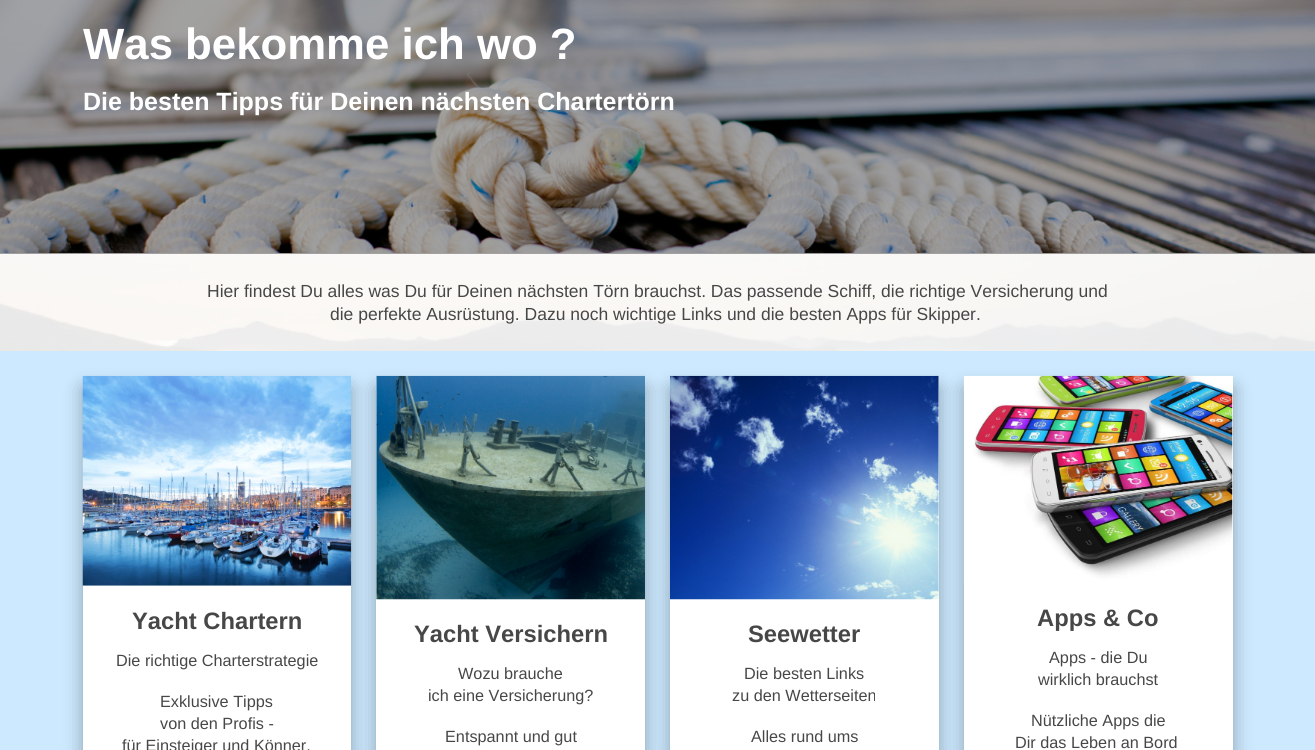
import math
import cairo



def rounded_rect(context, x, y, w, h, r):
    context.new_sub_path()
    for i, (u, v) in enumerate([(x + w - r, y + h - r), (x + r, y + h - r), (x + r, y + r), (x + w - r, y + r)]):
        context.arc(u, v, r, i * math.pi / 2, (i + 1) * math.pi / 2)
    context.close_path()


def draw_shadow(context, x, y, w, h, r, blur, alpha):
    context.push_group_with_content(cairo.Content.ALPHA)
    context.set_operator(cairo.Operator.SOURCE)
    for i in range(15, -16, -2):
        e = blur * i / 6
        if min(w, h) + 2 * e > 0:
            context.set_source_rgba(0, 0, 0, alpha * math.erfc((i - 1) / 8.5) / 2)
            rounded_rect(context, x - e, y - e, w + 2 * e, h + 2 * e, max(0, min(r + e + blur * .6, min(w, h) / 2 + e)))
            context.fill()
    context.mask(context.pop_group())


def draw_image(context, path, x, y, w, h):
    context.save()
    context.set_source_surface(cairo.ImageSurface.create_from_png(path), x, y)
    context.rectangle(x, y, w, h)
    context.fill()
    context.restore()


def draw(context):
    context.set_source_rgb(1, 1, 1)
    context.paint()
    draw_image(context, "images/1.png", 0, 253, 1315, 98)
    draw_image(context, "images/2.png", 0, 0, 1315, 254)
    context.set_source_rgba(0, 0, 0, 0.35)
    context.rectangle(0, 0, 1315, 254)
    context.fill()
    context.set_source_rgb(204 / 255, 233 / 255, 1)
    context.rectangle(0, 351, 1315, 399)
    context.fill()
    context.set_source_rgb(0, 0, 0)
    draw_shadow(context, 83, 388, 268, 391, 0, 9.5, 0.32)
    context.set_source_rgb(1, 1, 1)
    context.rectangle(83, 585, 268, 165)
    context.fill()
    draw_image(context, "images/3.png", 82, 375, 270, 211)
    context.set_source_rgb(0, 0, 0)
    draw_shadow(context, 376, 388, 269, 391, 0, 9.5, 0.32)
    context.set_source_rgb(1, 1, 1)
    context.rectangle(376, 376, 269, 374)
    context.fill()
    draw_image(context, "images/4.png", 376, 375, 269, 225)
    context.set_source_rgb(0, 0, 0)
    draw_shadow(context, 670, 388, 269, 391, 0, 9.5, 0.32)
    context.set_source_rgb(1, 1, 1)
    context.rectangle(670, 376, 269, 374)
    context.fill()
    draw_image(context, "images/5.png", 670, 375, 269, 225)
    context.set_source_rgb(0, 0, 0)
    draw_shadow(context, 964, 388, 269, 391, 0, 9.5, 0.32)
    context.set_source_rgb(1, 1, 1)
    context.rectangle(964, 376, 269, 374)
    context.fill()
    draw_image(context, "images/6.png", 963, 375, 270, 208)
    context.select_font_face("Arimo", cairo.FontSlant.NORMAL, cairo.FontWeight.BOLD)
    context.set_font_size(43.75)
    context.move_to(83, 59)
    context.show_text("Was bekomme ich wo ?")
    context.select_font_face("Liberation Sans", cairo.FontSlant.NORMAL, cairo.FontWeight.BOLD)
    context.set_font_size(25)
    context.move_to(83, 110)
    context.show_text("Die besten Tipps für Deinen nächsten Chartertörn")
    context.select_font_face("Liberation Sans")
    context.set_font_size(17.5)
    context.set_source_rgb(71 / 255, 71 / 255, 71 / 255)
    context.move_to(207, 297)
    context.show_text("Hier findest Du alles was Du für Deinen nächsten Törn brauchst. Das passende Schiff, die richtige Versicherung und")
    context.move_to(330, 320)
    context.show_text("die perfekte Ausrüstung. Dazu noch wichtige Links und die besten Apps für Skipper.")
    context.select_font_face("Arimo", cairo.FontSlant.NORMAL, cairo.FontWeight.BOLD)
    context.set_font_size(23.75)
    context.move_to(132, 629)
    context.show_text("Yacht Chartern")
    context.select_font_face("Liberation Sans")
    context.set_font_size(16.25)
    context.move_to(116, 666)
    context.show_text("Die richtige Charterstrategie")
    context.move_to(160, 707)
    context.show_text("Exklusive Tipps")
    context.move_to(160, 729)
    context.show_text("von den Profis -")
    context.move_to(122, 751)
    context.show_text("für Einsteiger und Könner.")
    context.select_font_face("Arimo", cairo.FontSlant.NORMAL, cairo.FontWeight.BOLD)
    context.set_font_size(23.75)
    context.move_to(414, 642)
    context.show_text("Yacht Versichern")
    context.select_font_face("Liberation Sans")
    context.set_font_size(16.25)
    context.move_to(458, 679)
    context.show_text("Wozu brauche")
    context.move_to(428, 701)
    context.show_text("ich eine Versicherung?")
    context.move_to(445, 742)
    context.show_text("Entspannt und gut")
    context.select_font_face("Arimo", cairo.FontSlant.NORMAL, cairo.FontWeight.BOLD)
    context.set_font_size(23.75)
    context.move_to(748, 642)
    context.show_text("Seewetter")
    context.select_font_face("Liberation Sans")
    context.set_font_size(16.25)
    context.move_to(744, 679)
    context.show_text("Die besten Links")
    context.move_to(732, 701)
    context.show_text("zu den Wetterseiten")
    context.move_to(751, 742)
    context.show_text("Alles rund ums")
    context.select_font_face("Arimo", cairo.FontSlant.NORMAL, cairo.FontWeight.BOLD)
    context.set_font_size(23.75)
    context.move_to(1037, 626)
    context.show_text("Apps & Co")
    context.select_font_face("Liberation Sans")
    context.set_font_size(16.25)
    context.move_to(1049, 663)
    context.show_text("Apps - die Du")
    context.move_to(1038, 685)
    context.show_text("wirklich brauchst")
    context.move_to(1031, 726)
    context.show_text("Nützliche Apps die")
    context.move_to(1015, 748)
    context.show_text("Dir das Leben an Bord")


surface = cairo.ImageSurface(cairo.Format.RGB24, 1315, 750)
context = cairo.Context(surface)
options = cairo.FontOptions()
options.set_hint_metrics(cairo.HintMetrics.OFF)
options.set_hint_style(cairo.HintStyle.NONE)
context.set_font_options(options)
context.set_miter_limit(4)
draw(context)
surface.write_to_png("out.png")
